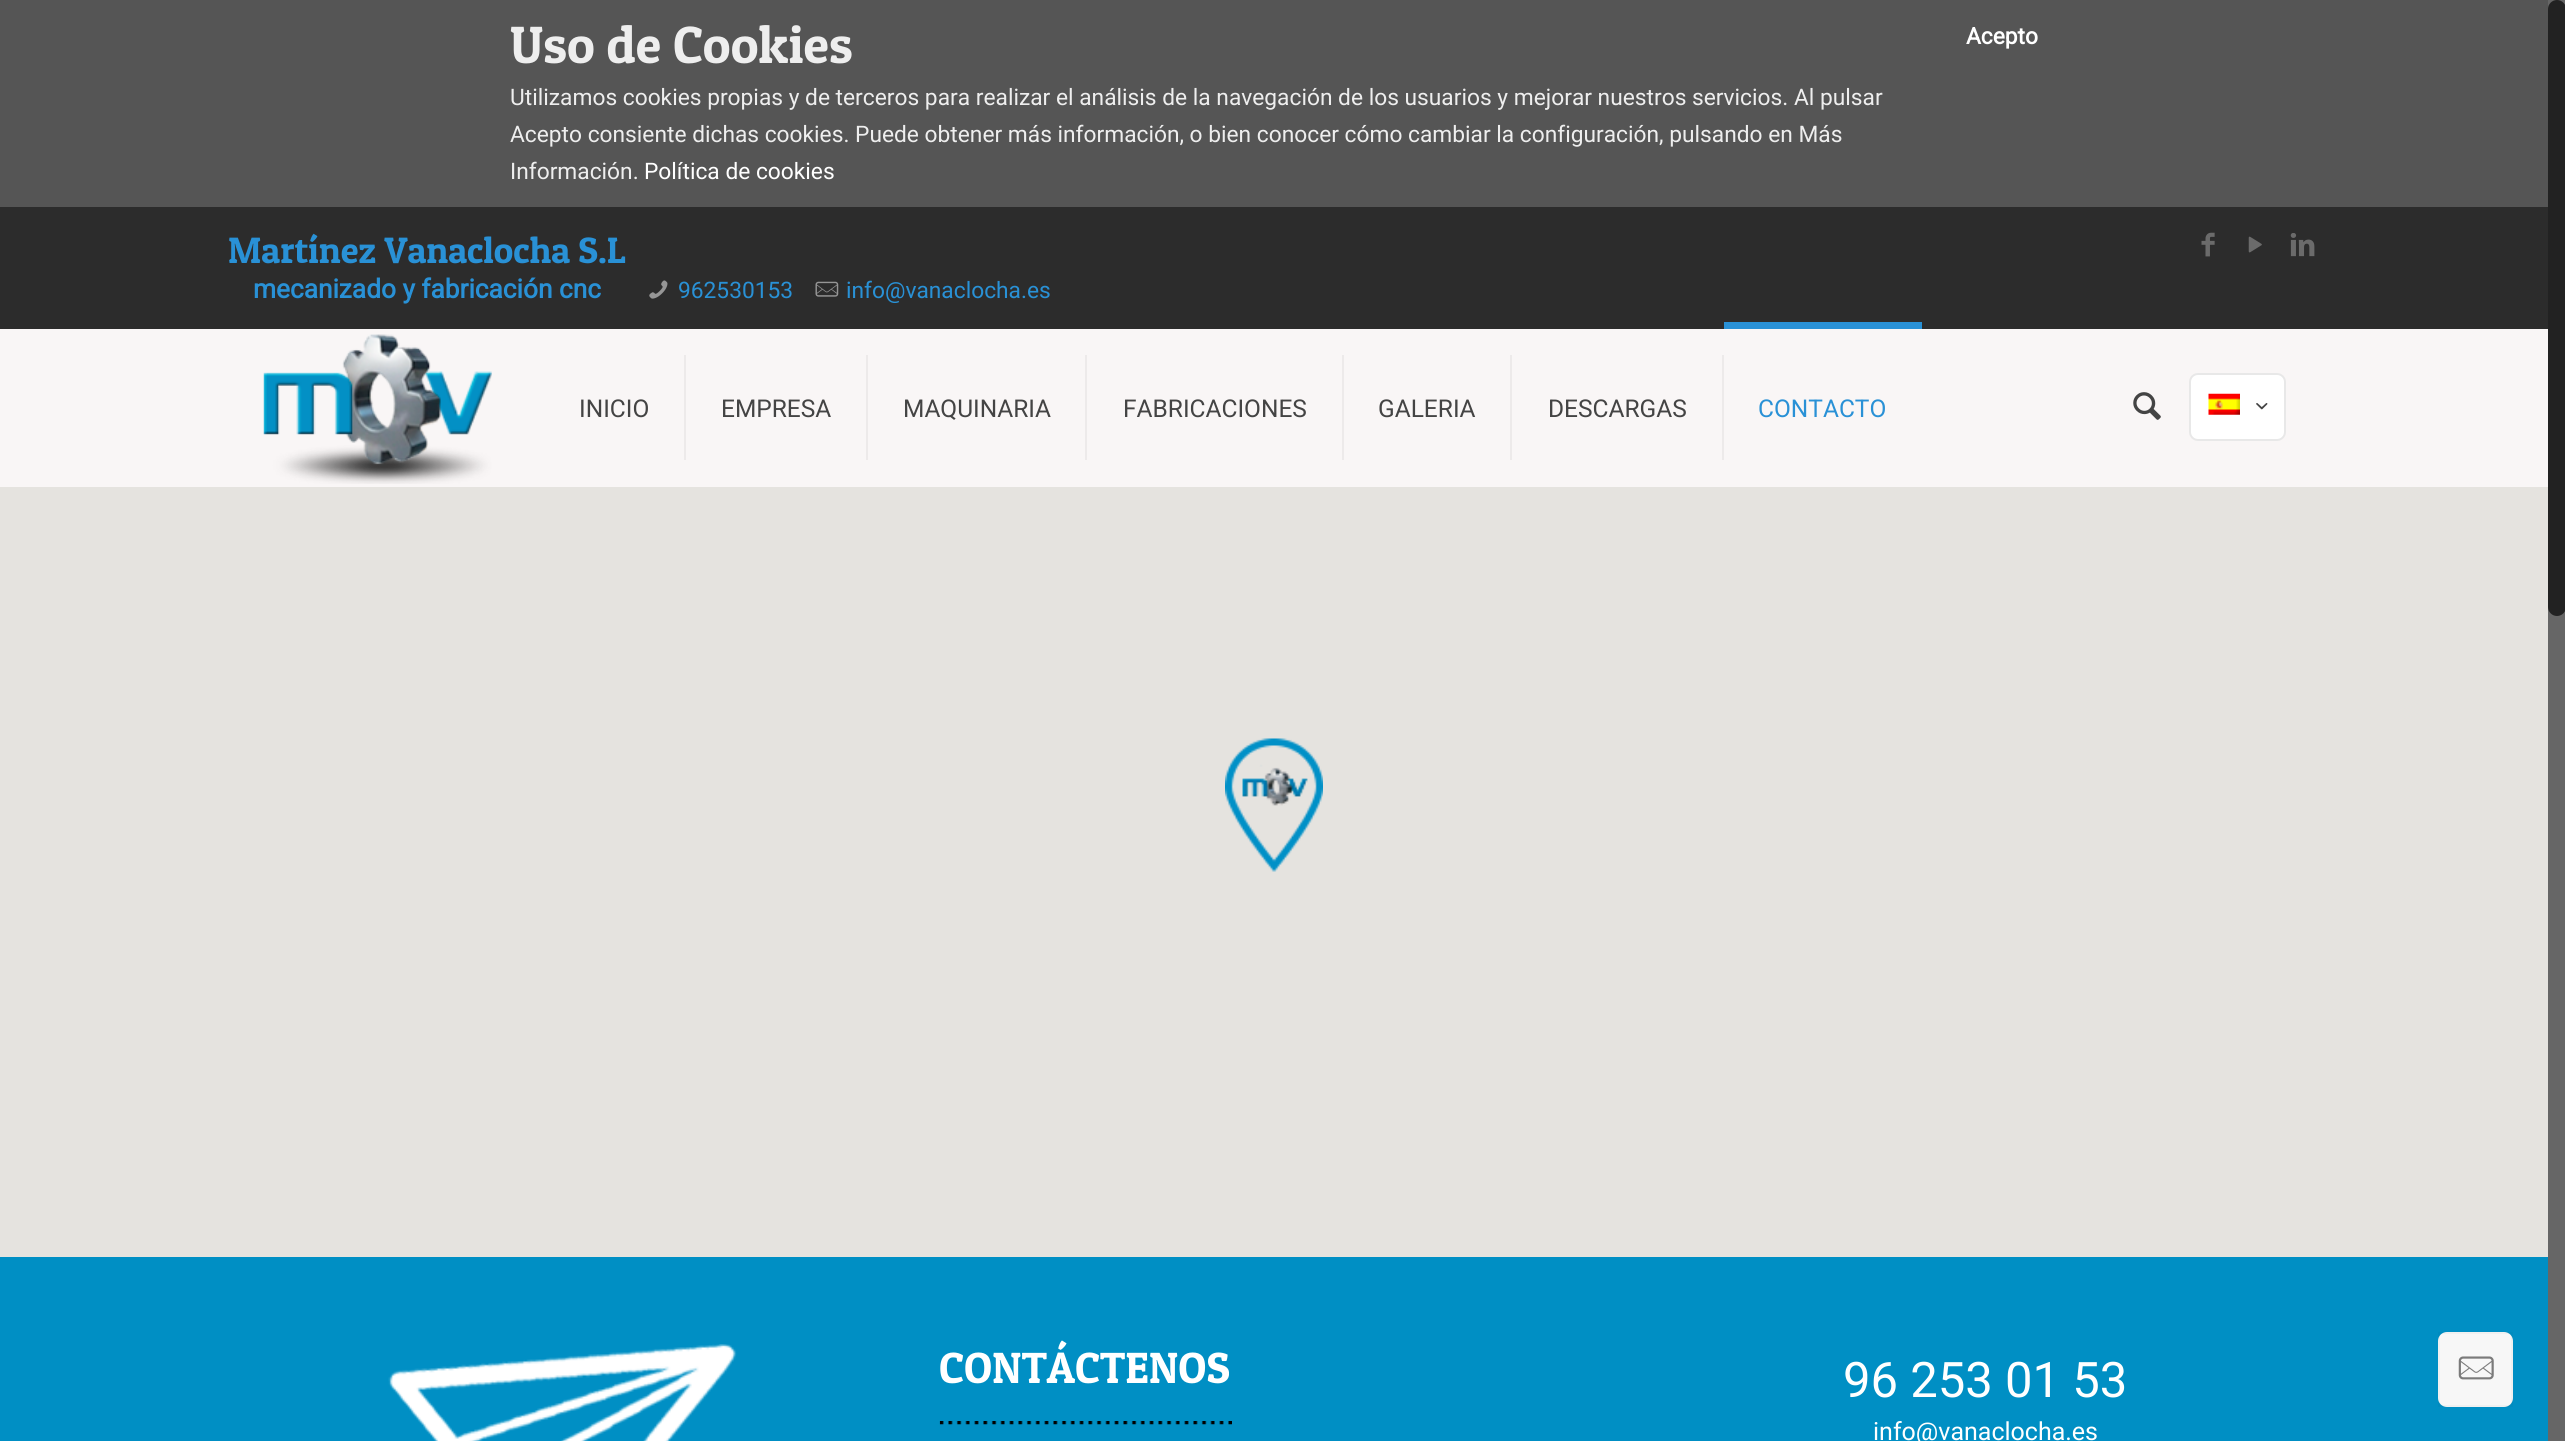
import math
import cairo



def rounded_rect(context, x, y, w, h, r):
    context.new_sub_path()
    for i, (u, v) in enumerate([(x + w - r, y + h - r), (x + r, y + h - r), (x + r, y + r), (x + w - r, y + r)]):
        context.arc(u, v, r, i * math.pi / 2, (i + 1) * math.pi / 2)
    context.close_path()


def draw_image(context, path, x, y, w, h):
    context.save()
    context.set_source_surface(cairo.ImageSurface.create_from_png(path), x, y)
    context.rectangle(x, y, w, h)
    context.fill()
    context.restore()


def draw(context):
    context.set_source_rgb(85 / 255, 85 / 255, 85 / 255)
    context.paint()
    context.set_source_rgb(44 / 255, 44 / 255, 44 / 255)
    context.rectangle(0, 207, 2548, 122)
    context.fill()
    draw_image(context, "images/1.png", 649, 280, 19, 19)
    draw_image(context, "images/2.png", 815, 281, 24, 16)
    draw_image(context, "images/3.png", 2201, 232, 14, 25)
    draw_image(context, "images/4.png", 2248, 236, 14, 17)
    draw_image(context, "images/5.png", 2290, 233, 25, 24)
    context.set_source_rgb(249 / 255, 246 / 255, 246 / 255)
    context.rectangle(0, 329, 2548, 158)
    context.fill()
    draw_image(context, "images/6.png", 263, 334, 229, 150)
    context.set_source_rgb(237 / 255, 234 / 255, 234 / 255)
    context.rectangle(684, 355, 2, 105)
    context.fill()
    context.rectangle(866, 355, 2, 105)
    context.fill()
    context.rectangle(1085, 355, 2, 105)
    context.fill()
    context.rectangle(1342, 355, 2, 105)
    context.fill()
    context.rectangle(1510, 355, 2, 105)
    context.fill()
    context.rectangle(1722, 355, 2, 105)
    context.fill()
    context.set_source_rgb(41 / 255, 145 / 255, 214 / 255)
    context.rectangle(1724, 322, 198, 7)
    context.fill()
    draw_image(context, "images/7.png", 2133, 392, 28, 28)
    context.set_source_rgb(1, 1, 1)
    rounded_rect(context, 2190, 374, 95, 66, 8)
    context.fill_preserve()
    context.set_source_rgb(232 / 255, 232 / 255, 232 / 255)
    context.stroke()
    draw_image(context, "images/8.png", 2208, 393, 32, 22)
    draw_image(context, "images/9.png", 2256, 403, 12, 7)
    context.set_source_rgb(229 / 255, 227 / 255, 223 / 255)
    context.rectangle(0, 487, 2548, 770)
    context.fill()
    draw_image(context, "images/10.png", 1225, 738, 98, 134)
    context.set_source_rgb(0, 143 / 255, 196 / 255)
    context.rectangle(0, 1257, 2548, 184)
    context.fill()
    draw_image(context, "images/11.png", 388, 1344, 349, 97)
    draw_image(context, "images/12.png", 939, 1421, 293, 4)
    context.set_source_rgb(247 / 255, 247 / 255, 247 / 255)
    rounded_rect(context, 2438, 1332, 75, 75, 9)
    context.fill()
    context.rectangle(2439, 1333, 73, 73)
    context.set_source_rgba(0, 0, 0, 0.03)
    context.stroke()
    draw_image(context, "images/13.png", 2458, 1356, 36, 24)
    context.set_source_rgb(102 / 255, 102 / 255, 102 / 255)
    context.rectangle(2548, 0, 17, 1441)
    context.fill()
    context.set_source_rgb(34 / 255, 34 / 255, 34 / 255)
    rounded_rect(context, 2548, 0, 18, 616, 9)
    context.fill()
    context.select_font_face("Patua One")
    context.set_font_size(52.5)
    context.set_source_rgb(238 / 255, 238 / 255, 238 / 255)
    context.move_to(510, 63)
    context.show_text("Uso de Cookies")
    context.select_font_face("Roboto")
    context.set_font_size(22.75)
    context.move_to(510, 105)
    context.show_text("Utilizamos cookies propias y de terceros para realizar el análisis de la navegación de los usuarios y mejorar nuestros servicios. Al pulsar")
    context.move_to(510, 142)
    context.show_text("Acepto consiente dichas cookies. Puede obtener más información, o bien conocer cómo cambiar la configuración, pulsando en Más")
    context.move_to(510, 179)
    context.show_text("Información.")
    context.set_source_rgb(1, 1, 1)
    context.move_to(644, 179)
    context.show_text("Política de cookies")
    context.select_font_face("Roboto", cairo.FontSlant.NORMAL, cairo.FontWeight.BOLD)
    context.move_to(1966, 44)
    context.show_text("Acepto")
    context.select_font_face("Patua One")
    context.set_font_size(36.75)
    context.set_source_rgb(41 / 255, 145 / 255, 214 / 255)
    context.move_to(228, 263)
    context.show_text("Martínez Vanaclocha S.L")
    context.select_font_face("Roboto", cairo.FontSlant.NORMAL, cairo.FontWeight.BOLD)
    context.set_font_size(26.25)
    context.move_to(253, 298)
    context.show_text("mecanizado y fabricación cnc")
    context.select_font_face("Roboto")
    context.set_font_size(22.75)
    context.move_to(678, 298)
    context.show_text("962530153")
    context.move_to(846, 298)
    context.show_text("info@vanaclocha.es")
    context.set_font_size(24.5)
    context.set_source_rgb(68 / 255, 68 / 255, 68 / 255)
    context.move_to(579, 417)
    context.show_text("INICIO")
    context.move_to(721, 417)
    context.show_text("EMPRESA")
    context.move_to(903, 417)
    context.show_text("MAQUINARIA")
    context.move_to(1123, 417)
    context.show_text("FABRICACIONES")
    context.move_to(1378, 417)
    context.show_text("GALERIA")
    context.move_to(1548, 417)
    context.show_text("DESCARGAS")
    context.set_source_rgb(41 / 255, 145 / 255, 214 / 255)
    context.move_to(1758, 417)
    context.show_text("CONTACTO")
    context.select_font_face("Patua One")
    context.set_font_size(43.75)
    context.set_source_rgb(1, 1, 1)
    context.move_to(939, 1383)
    context.show_text("CONTÁCTENOS")
    context.select_font_face("Roboto")
    context.set_font_size(49)
    context.move_to(1843, 1397)
    context.show_text("96 253 01 53")
    context.set_font_size(25)
    context.move_to(1873, 1440)
    context.show_text("info@vanaclocha.es")


surface = cairo.ImageSurface(cairo.Format.RGB24, 2565, 1441)
context = cairo.Context(surface)
options = cairo.FontOptions()
options.set_hint_metrics(cairo.HintMetrics.OFF)
options.set_hint_style(cairo.HintStyle.NONE)
context.set_font_options(options)
context.set_miter_limit(4)
draw(context)
surface.write_to_png("out.png")
